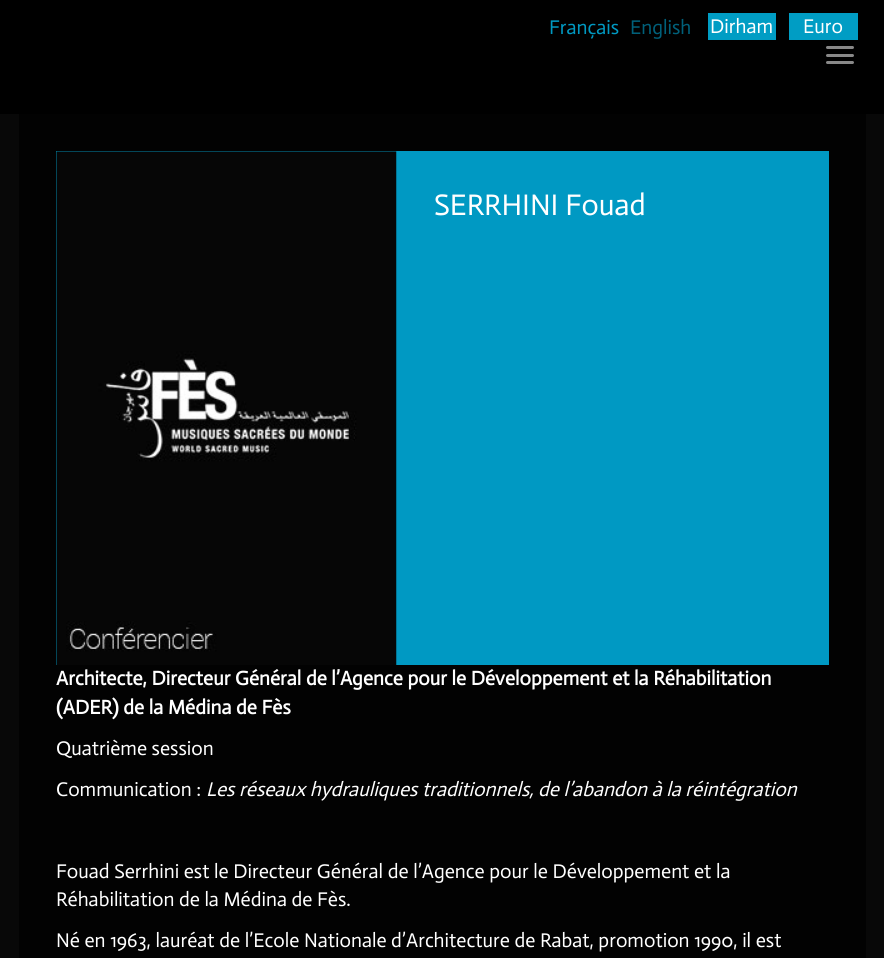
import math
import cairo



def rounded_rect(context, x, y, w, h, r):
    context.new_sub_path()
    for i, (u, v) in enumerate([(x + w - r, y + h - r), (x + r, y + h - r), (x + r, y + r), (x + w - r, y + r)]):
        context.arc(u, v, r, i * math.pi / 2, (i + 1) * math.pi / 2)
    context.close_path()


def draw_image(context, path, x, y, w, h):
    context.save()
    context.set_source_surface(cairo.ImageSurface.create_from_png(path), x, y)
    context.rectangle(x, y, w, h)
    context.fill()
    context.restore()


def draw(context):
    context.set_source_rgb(8 / 255, 8 / 255, 8 / 255)
    context.paint()
    context.set_source_rgb(0, 0, 0)
    context.rectangle(0, 0, 884, 114)
    context.fill()
    context.set_source_rgb(0, 157 / 255, 196 / 255)
    context.rectangle(708, 13, 68, 27)
    context.fill()
    context.rectangle(789, 13, 69, 27)
    context.fill()
    context.set_source_rgb(136 / 255, 136 / 255, 136 / 255)
    rounded_rect(context, 826, 46, 28, 3, 1.5)
    context.fill()
    rounded_rect(context, 826, 54, 28, 3, 1.5)
    context.fill()
    rounded_rect(context, 826, 61, 28, 3, 1.5)
    context.fill()
    context.set_source_rgb(2 / 255, 2 / 255, 2 / 255)
    context.rectangle(19, 114, 847, 844)
    context.fill()
    context.set_source_rgb(0, 153 / 255, 195 / 255)
    context.rectangle(56, 151, 773, 514)
    context.fill()
    draw_image(context, "images/1.png", 56, 151, 341, 514)
    context.select_font_face("Actor")
    context.set_font_size(20)
    context.set_source_rgb(0, 153 / 255, 194 / 255)
    context.move_to(549, 34)
    context.show_text("Français")
    context.set_source_rgb(0, 96 / 255, 122 / 255)
    context.move_to(630, 34)
    context.show_text("English")
    context.set_source_rgb(1, 1, 1)
    context.move_to(710, 33)
    context.show_text("Dirham")
    context.move_to(803, 33)
    context.show_text("Euro")
    context.set_font_size(30)
    context.move_to(434, 215)
    context.show_text("SERRHINI Fouad")
    context.select_font_face("Actor", cairo.FontSlant.NORMAL, cairo.FontWeight.BOLD)
    context.set_font_size(20)
    context.move_to(56, 685)
    context.show_text("Architecte, Directeur Général de l’Agence pour le Développement et la Réhabilitation")
    context.move_to(56, 714)
    context.show_text("(ADER) de la Médina de Fès")
    context.select_font_face("Actor")
    context.move_to(56, 755)
    context.show_text("Quatrième session")
    context.move_to(56, 796)
    context.show_text("Communication :")
    context.select_font_face("Actor", cairo.FontSlant.ITALIC)
    context.move_to(206, 796)
    context.show_text("Les réseaux hydrauliques traditionnels, de l’abandon à la réintégration")
    context.select_font_face("Actor")
    context.move_to(56, 878)
    context.show_text("Fouad Serrhini est le Directeur Général de l’Agence pour le Développement et la")
    context.move_to(56, 906)
    context.show_text("Réhabilitation de la Médina de Fès.")
    context.move_to(56, 947)
    context.show_text("Né en 1963, lauréat de l’Ecole Nationale d’Architecture de Rabat, promotion 1990, il est")


surface = cairo.ImageSurface(cairo.Format.RGB24, 884, 958)
context = cairo.Context(surface)
options = cairo.FontOptions()
options.set_hint_metrics(cairo.HintMetrics.OFF)
options.set_hint_style(cairo.HintStyle.NONE)
context.set_font_options(options)
context.set_miter_limit(4)
draw(context)
surface.write_to_png("out.png")
